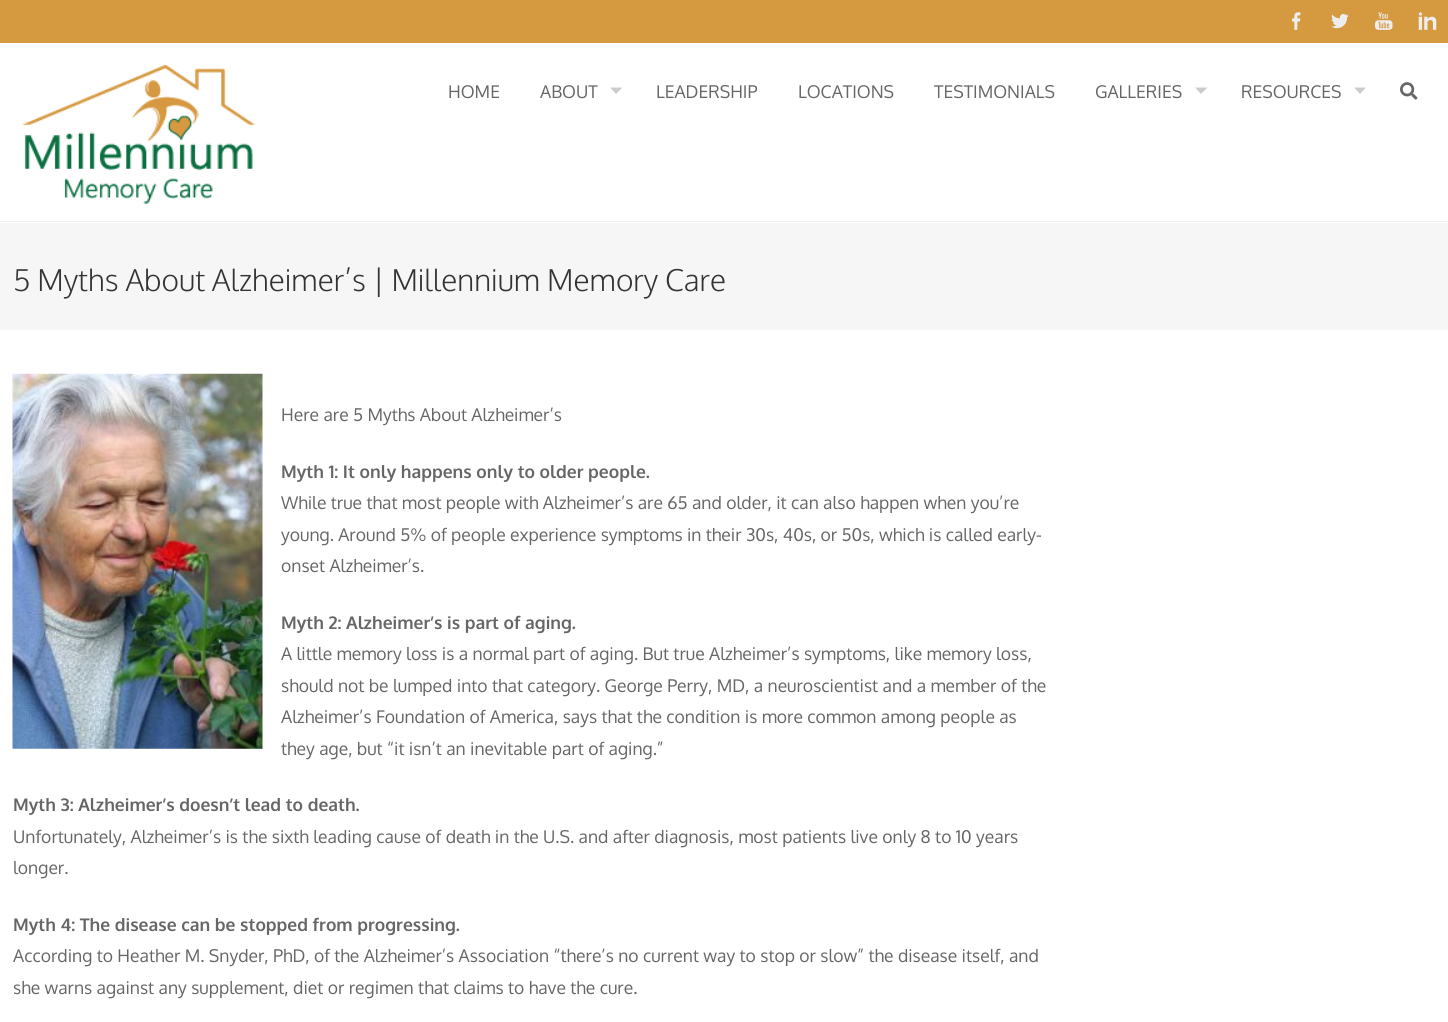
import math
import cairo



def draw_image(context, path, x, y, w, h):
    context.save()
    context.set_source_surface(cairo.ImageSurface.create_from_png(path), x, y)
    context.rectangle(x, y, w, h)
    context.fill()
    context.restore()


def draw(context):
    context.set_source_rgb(1, 1, 1)
    context.paint()
    context.set_source_rgb(213 / 255, 153 / 255, 64 / 255)
    context.rectangle(0, 0, 1448, 43)
    context.fill()
    draw_image(context, "images/1.png", 1292, 12, 9, 18)
    draw_image(context, "images/2.png", 1331, 14, 18, 15)
    draw_image(context, "images/3.png", 1375, 12, 18, 18)
    draw_image(context, "images/4.png", 1418, 12, 19, 18)
    context.set_source_rgb(238 / 255, 238 / 255, 238 / 255)
    context.rectangle(0, 221, 1448, 1)
    context.fill()
    draw_image(context, "images/5.png", 22, 64, 233, 140)
    context.set_source_rgb(204 / 255, 204 / 255, 204 / 255)
    context.new_path()
    context.move_to(610, 87.5)
    context.line_to(622.5, 87.5)
    context.line_to(616, 94)
    context.close_path()
    context.fill()
    context.new_path()
    context.move_to(1195, 87.5)
    context.line_to(1207.5, 87.5)
    context.line_to(1201, 94)
    context.close_path()
    context.fill()
    context.new_path()
    context.move_to(1354, 87.5)
    context.line_to(1366, 87.5)
    context.line_to(1360, 94)
    context.close_path()
    context.fill()
    draw_image(context, "images/6.png", 1400, 82, 18, 18)
    context.set_source_rgb(246 / 255, 246 / 255, 246 / 255)
    context.rectangle(0, 223, 1448, 107)
    context.fill()
    draw_image(context, "images/7.png", 12, 373, 251, 376)
    context.select_font_face("Oxygen")
    context.set_font_size(17.5)
    context.set_source_rgb(102 / 255, 102 / 255, 102 / 255)
    context.move_to(448, 98)
    context.show_text("HOME")
    context.move_to(540, 98)
    context.show_text("ABOUT")
    context.move_to(656, 98)
    context.show_text("LEADERSHIP")
    context.move_to(798, 98)
    context.show_text("LOCATIONS")
    context.move_to(934, 98)
    context.show_text("TESTIMONIALS")
    context.move_to(1095, 98)
    context.show_text("GALLERIES")
    context.move_to(1241, 98)
    context.show_text("RESOURCES")
    context.select_font_face("Oxygen Light")
    context.set_font_size(30)
    context.set_source_rgb(51 / 255, 51 / 255, 51 / 255)
    context.move_to(13, 291)
    context.show_text("5 Myths About Alzheimer’s | Millennium Memory Care")
    context.select_font_face("Oxygen")
    context.set_font_size(17.5)
    context.set_source_rgb(102 / 255, 102 / 255, 102 / 255)
    context.move_to(281, 421)
    context.show_text("Here are 5 Myths About Alzheimer’s")
    context.select_font_face("Oxygen", cairo.FontSlant.NORMAL, cairo.FontWeight.BOLD)
    context.move_to(281, 478)
    context.show_text("Myth 1: It only happens only to older people.")
    context.select_font_face("Oxygen")
    context.move_to(281, 509)
    context.show_text("While true that most people with Alzheimer’s are 65 and older, it can also happen when you’re")
    context.move_to(281, 541)
    context.show_text("young. Around 5% of people experience symptoms in their 30s, 40s, or 50s, which is called early-")
    context.move_to(281, 572)
    context.show_text("onset Alzheimer’s.")
    context.select_font_face("Oxygen", cairo.FontSlant.NORMAL, cairo.FontWeight.BOLD)
    context.move_to(281, 629)
    context.show_text("Myth 2: Alzheimer’s is part of aging.")
    context.select_font_face("Oxygen")
    context.move_to(281, 660)
    context.show_text("A little memory loss is a normal part of aging. But true Alzheimer’s symptoms, like memory loss,")
    context.move_to(281, 692)
    context.show_text("should not be lumped into that category. George Perry, MD, a neuroscientist and a member of the")
    context.move_to(281, 723)
    context.show_text("Alzheimer’s Foundation of America, says that the condition is more common among people as")
    context.move_to(281, 755)
    context.show_text("they age, but “it isn’t an inevitable part of aging.”")
    context.select_font_face("Oxygen", cairo.FontSlant.NORMAL, cairo.FontWeight.BOLD)
    context.move_to(13, 811)
    context.show_text("Myth 3: Alzheimer’s doesn’t lead to death.")
    context.select_font_face("Oxygen")
    context.move_to(13, 843)
    context.show_text("Unfortunately, Alzheimer’s is the sixth leading cause of death in the U.S. and after diagnosis, most patients live only 8 to 10 years")
    context.move_to(13, 874)
    context.show_text("longer.")
    context.select_font_face("Oxygen", cairo.FontSlant.NORMAL, cairo.FontWeight.BOLD)
    context.move_to(13, 931)
    context.show_text("Myth 4: The disease can be stopped from progressing.")
    context.select_font_face("Oxygen")
    context.move_to(13, 962)
    context.show_text("According to Heather M. Snyder, PhD, of the Alzheimer’s Association “there’s no current way to stop or slow” the disease itself, and")
    context.move_to(13, 994)
    context.show_text("she warns against any supplement, diet or regimen that claims to have the cure.")


surface = cairo.ImageSurface(cairo.Format.RGB24, 1448, 1022)
context = cairo.Context(surface)
options = cairo.FontOptions()
options.set_hint_metrics(cairo.HintMetrics.OFF)
options.set_hint_style(cairo.HintStyle.NONE)
context.set_font_options(options)
context.set_miter_limit(4)
draw(context)
surface.write_to_png("out.png")
